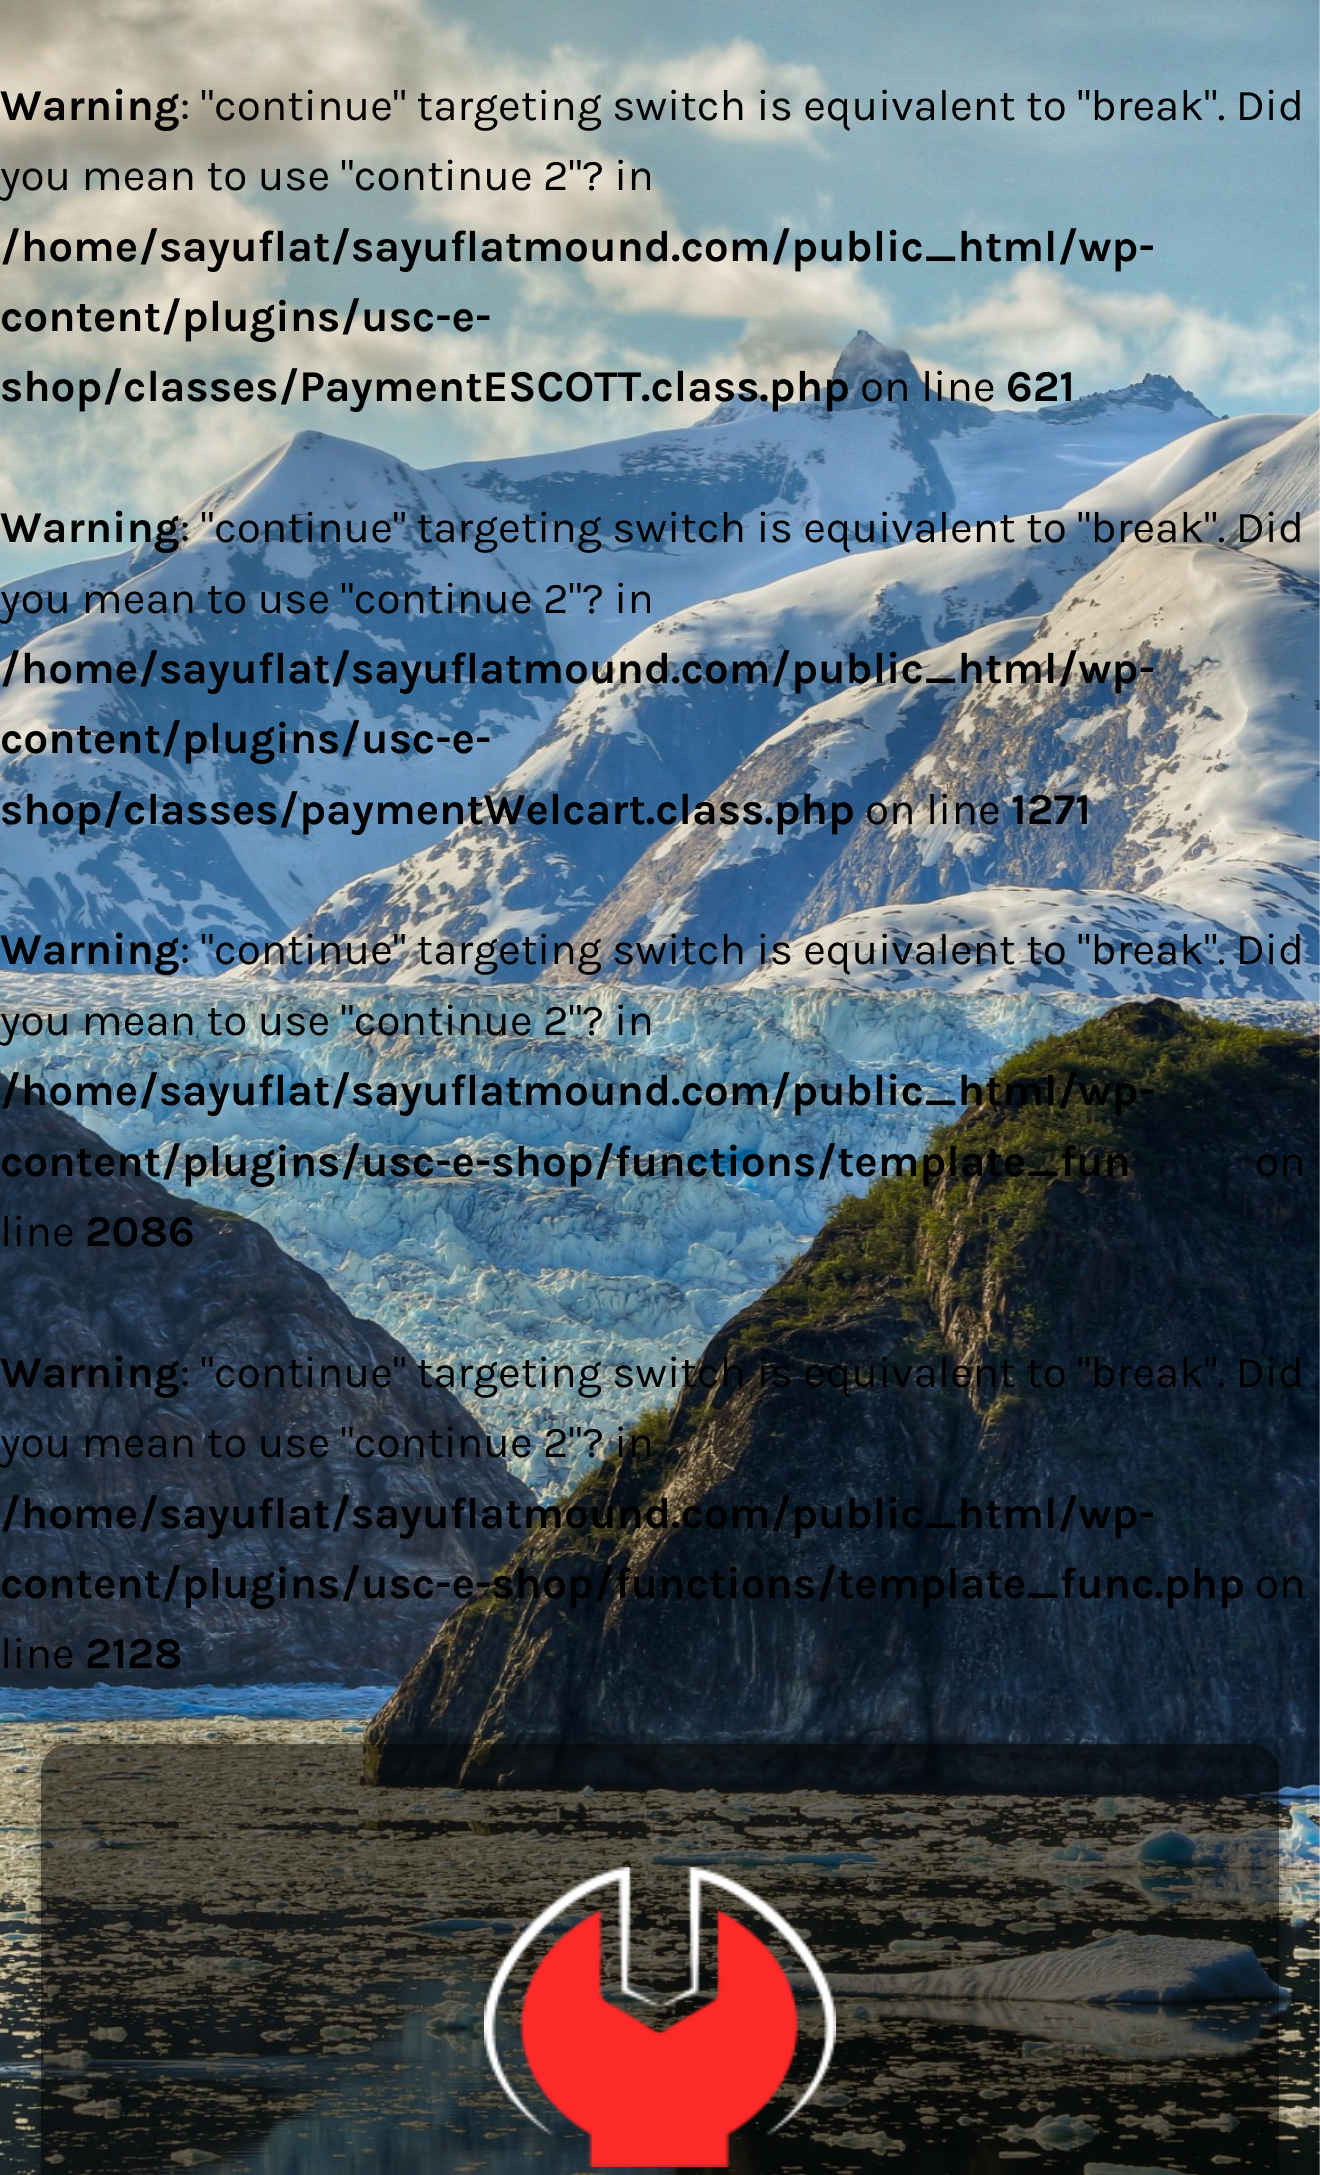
import math
import cairo



def rounded_rect(context, x, y, w, h, r):
    context.new_sub_path()
    for i, (u, v) in enumerate([(x + w - r, y + h - r), (x + r, y + h - r), (x + r, y + r), (x + w - r, y + r)]):
        context.arc(u, v, r, i * math.pi / 2, (i + 1) * math.pi / 2)
    context.close_path()


def draw_shadow(context, x, y, w, h, r, blur, alpha):
    context.push_group_with_content(cairo.Content.ALPHA)
    context.set_operator(cairo.Operator.SOURCE)
    for i in range(15, -16, -2):
        e = blur * i / 6
        if min(w, h) + 2 * e > 0:
            context.set_source_rgba(0, 0, 0, alpha * math.erfc((i - 1) / 8.5) / 2)
            rounded_rect(context, x - e, y - e, w + 2 * e, h + 2 * e, max(0, min(r + e + blur * .6, min(w, h) / 2 + e)))
            context.fill()
    context.mask(context.pop_group())


def draw_image(context, path, x, y, w, h):
    context.save()
    context.set_source_surface(cairo.ImageSurface.create_from_png(path), x, y)
    context.rectangle(x, y, w, h)
    context.fill()
    context.restore()


def draw(context):
    context.set_source_rgb(1, 1, 1)
    context.paint()
    draw_image(context, "images/1.png", 0, 0, 1320, 2175)
    context.save()
    context.set_fill_rule(cairo.FillRule.EVEN_ODD)
    context.new_path()
    context.move_to(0, 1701)
    context.line_to(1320, 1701)
    context.line_to(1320, 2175)
    context.line_to(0, 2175)
    context.close_path()
    context.move_to(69, 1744)
    context.line_to(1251, 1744)
    context.curve_to(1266.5, 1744, 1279, 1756.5, 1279, 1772)
    context.line_to(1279, 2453)
    context.curve_to(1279, 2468.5, 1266.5, 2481, 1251, 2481)
    context.line_to(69, 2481)
    context.curve_to(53.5, 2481, 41, 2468.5, 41, 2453)
    context.line_to(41, 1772)
    context.curve_to(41, 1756.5, 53.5, 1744, 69, 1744)
    context.close_path()
    context.clip()
    context.set_source_rgb(0, 0, 0)
    draw_shadow(context, 41, 1744, 1238, 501, 28, 14, 0.33)
    context.restore()
    context.set_source_rgba(0, 0, 0, 0.55)
    rounded_rect(context, 41, 1744, 1238, 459, 28)
    context.fill()
    draw_image(context, "images/2.png", 484, 1867, 352, 300)
    context.select_font_face("Karla", cairo.FontSlant.NORMAL, cairo.FontWeight.BOLD)
    context.set_font_size(44)
    context.set_source_rgb(0, 0, 0)
    context.move_to(0, 120)
    context.show_text("Warning")
    context.select_font_face("Karla")
    context.move_to(180, 120)
    context.show_text(": \"continue\" targeting switch is equivalent to \"break\". Did")
    context.move_to(0, 190)
    context.show_text("you mean to use \"continue 2\"? in")
    context.select_font_face("Karla", cairo.FontSlant.NORMAL, cairo.FontWeight.BOLD)
    context.move_to(0, 261)
    context.show_text("/home/sayuflat/sayuflatmound.com/public_html/wp-")
    context.move_to(0, 331)
    context.show_text("content/plugins/usc-e-")
    context.move_to(0, 401)
    context.show_text("shop/classes/PaymentESCOTT.class.php")
    context.select_font_face("Karla")
    context.move_to(860, 401)
    context.show_text("on line")
    context.select_font_face("Karla", cairo.FontSlant.NORMAL, cairo.FontWeight.BOLD)
    context.move_to(1006, 401)
    context.show_text("621")
    context.move_to(0, 542)
    context.show_text("Warning")
    context.select_font_face("Karla")
    context.move_to(180, 542)
    context.show_text(": \"continue\" targeting switch is equivalent to \"break\". Did")
    context.move_to(0, 613)
    context.show_text("you mean to use \"continue 2\"? in")
    context.select_font_face("Karla", cairo.FontSlant.NORMAL, cairo.FontWeight.BOLD)
    context.move_to(0, 683)
    context.show_text("/home/sayuflat/sayuflatmound.com/public_html/wp-")
    context.move_to(0, 753)
    context.show_text("content/plugins/usc-e-")
    context.move_to(0, 824)
    context.show_text("shop/classes/paymentWelcart.class.php")
    context.select_font_face("Karla")
    context.move_to(865, 824)
    context.show_text("on line")
    context.select_font_face("Karla", cairo.FontSlant.NORMAL, cairo.FontWeight.BOLD)
    context.move_to(1011, 824)
    context.show_text("1271")
    context.move_to(0, 964)
    context.show_text("Warning")
    context.select_font_face("Karla")
    context.move_to(180, 964)
    context.show_text(": \"continue\" targeting switch is equivalent to \"break\". Did")
    context.move_to(0, 1035)
    context.show_text("you mean to use \"continue 2\"? in")
    context.select_font_face("Karla", cairo.FontSlant.NORMAL, cairo.FontWeight.BOLD)
    context.move_to(0, 1105)
    context.show_text("/home/sayuflat/sayuflatmound.com/public_html/wp-")
    context.move_to(0, 1176)
    context.show_text("content/plugins/usc-e-shop/functions/template_fun")
    context.select_font_face("Karla")
    context.move_to(1255, 1176)
    context.show_text("on")
    context.move_to(0, 1246)
    context.show_text("line")
    context.select_font_face("Karla", cairo.FontSlant.NORMAL, cairo.FontWeight.BOLD)
    context.move_to(85, 1246)
    context.show_text("2086")
    context.move_to(0, 1387)
    context.show_text("Warning")
    context.select_font_face("Karla")
    context.move_to(180, 1387)
    context.show_text(": \"continue\" targeting switch is equivalent to \"break\". Did")
    context.move_to(0, 1457)
    context.show_text("you mean to use \"continue 2\"? in")
    context.select_font_face("Karla", cairo.FontSlant.NORMAL, cairo.FontWeight.BOLD)
    context.move_to(0, 1528)
    context.show_text("/home/sayuflat/sayuflatmound.com/public_html/wp-")
    context.move_to(0, 1598)
    context.show_text("content/plugins/usc-e-shop/functions/template_func.php")
    context.select_font_face("Karla")
    context.move_to(1255, 1598)
    context.show_text("on")
    context.move_to(0, 1668)
    context.show_text("line")
    context.select_font_face("Karla", cairo.FontSlant.NORMAL, cairo.FontWeight.BOLD)
    context.move_to(85, 1668)
    context.show_text("2128")


surface = cairo.ImageSurface(cairo.Format.RGB24, 1320, 2175)
context = cairo.Context(surface)
options = cairo.FontOptions()
options.set_hint_metrics(cairo.HintMetrics.OFF)
options.set_hint_style(cairo.HintStyle.NONE)
context.set_font_options(options)
context.set_miter_limit(4)
draw(context)
surface.write_to_png("out.png")
